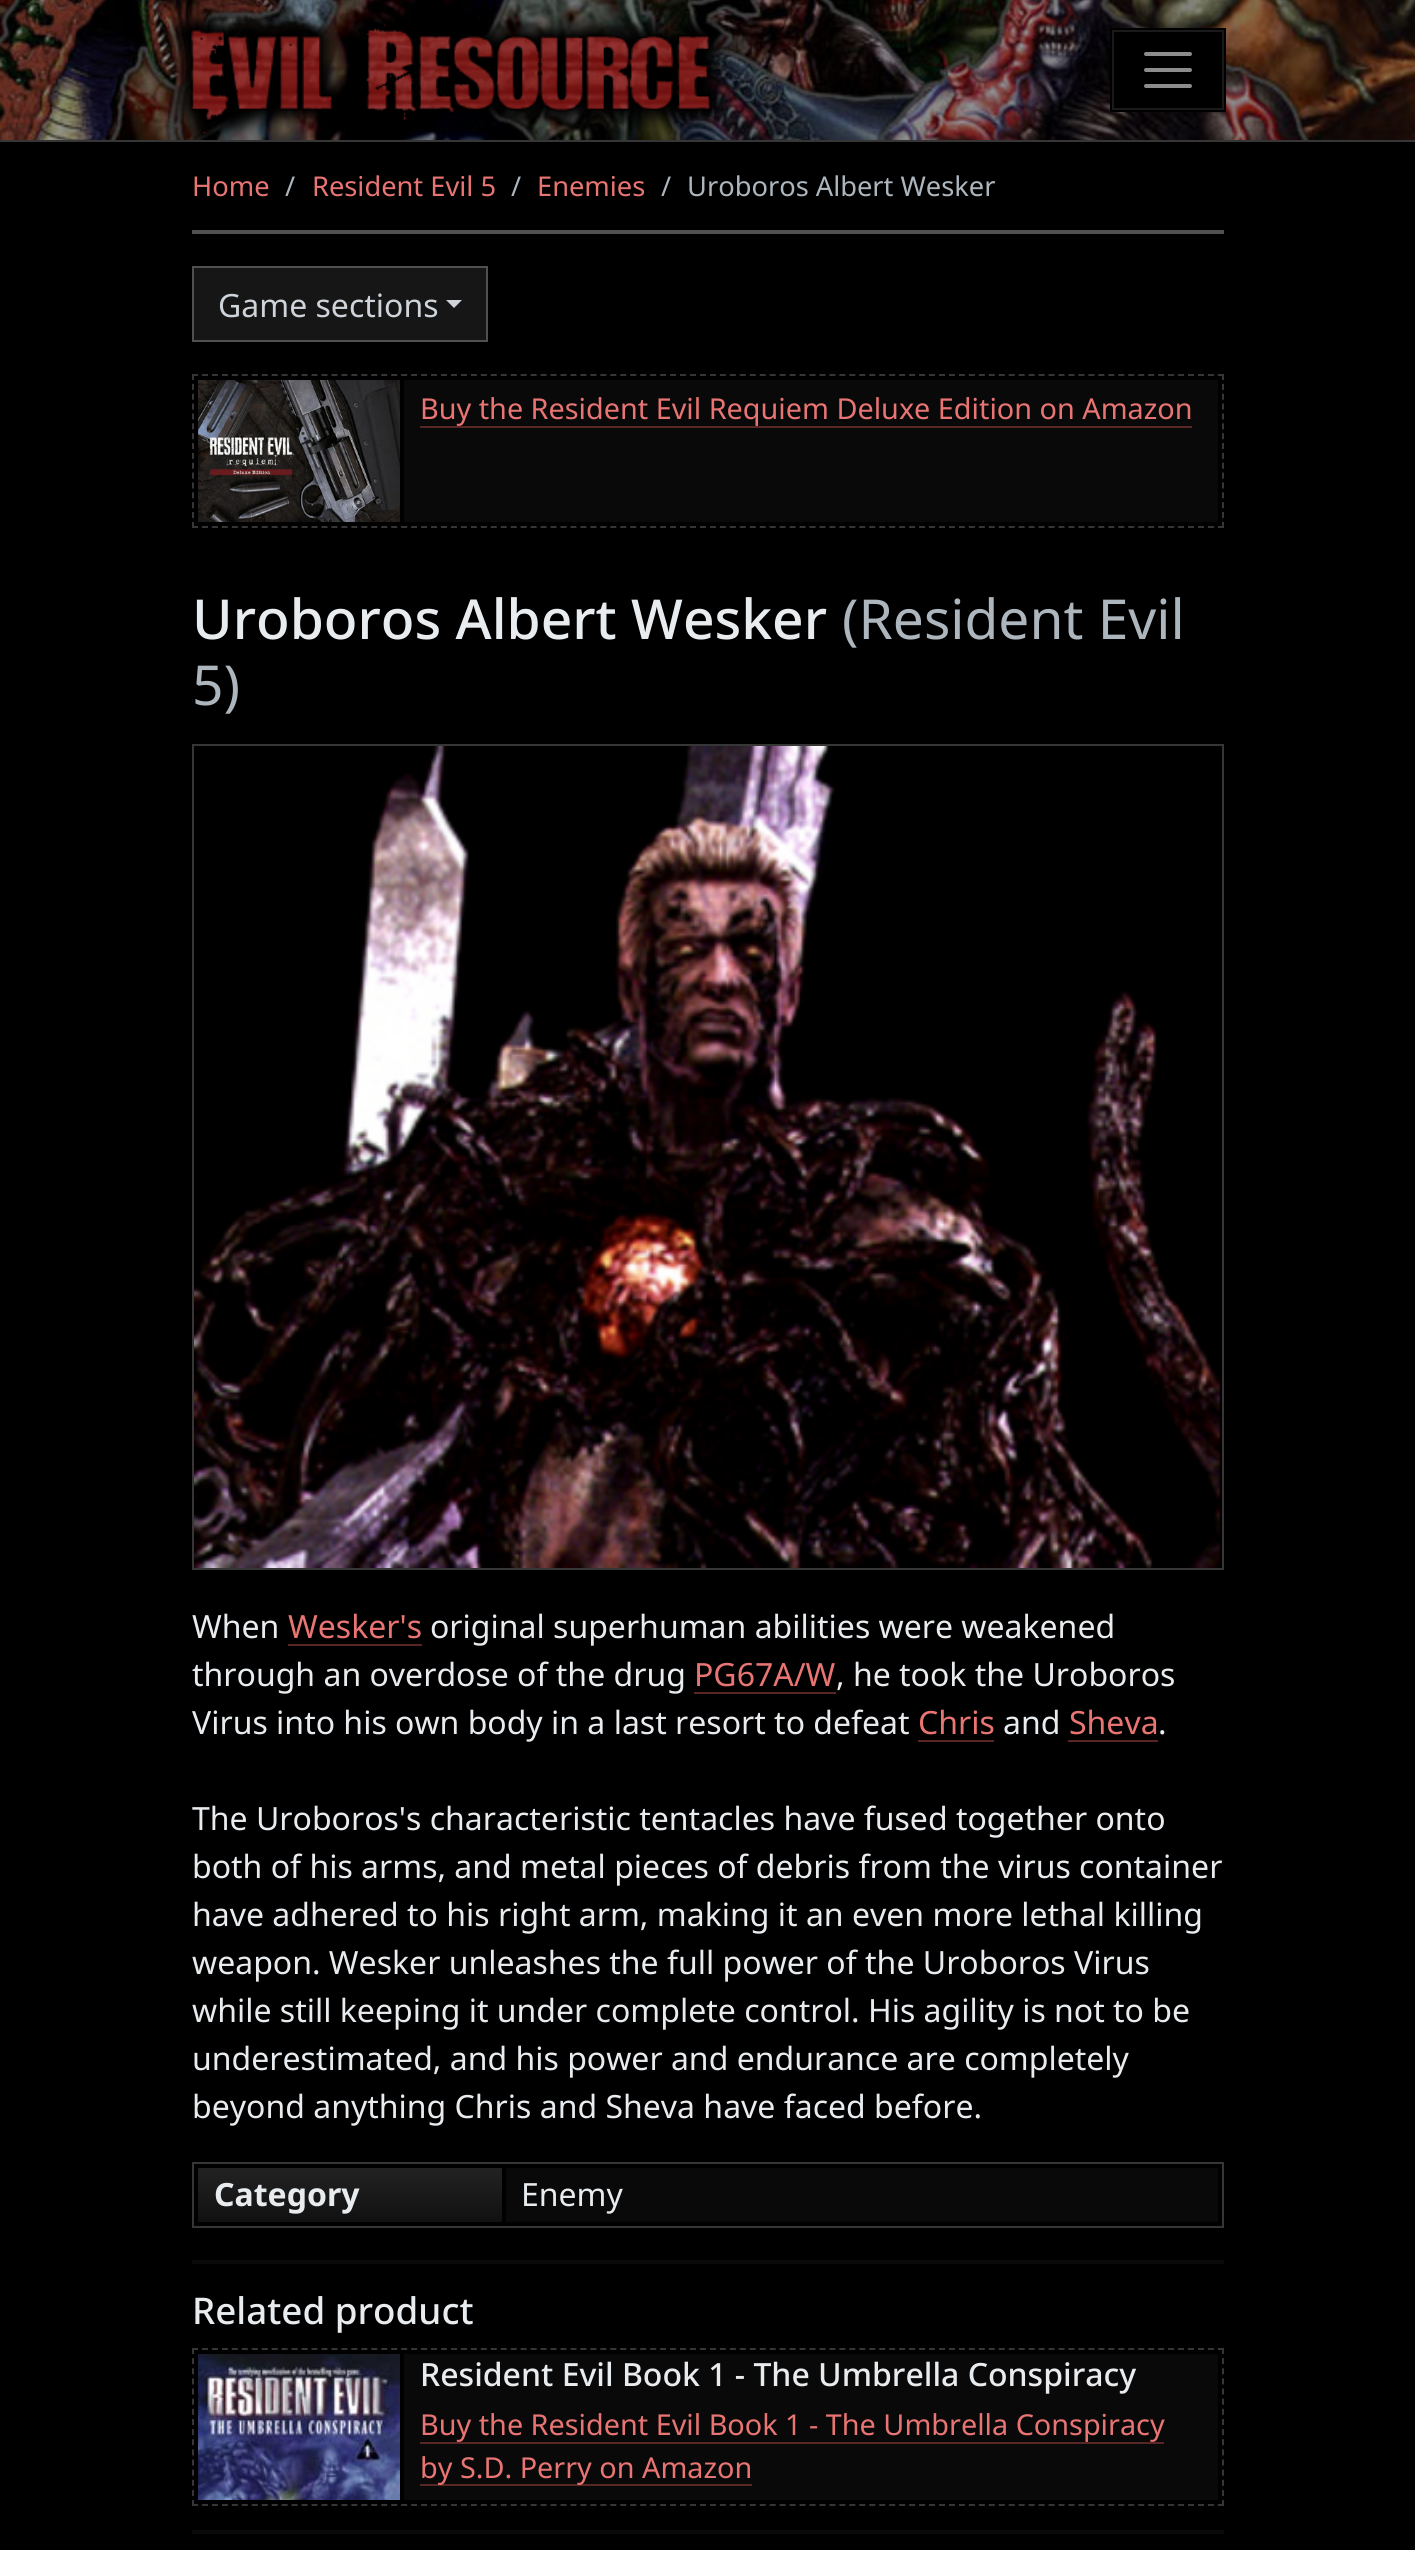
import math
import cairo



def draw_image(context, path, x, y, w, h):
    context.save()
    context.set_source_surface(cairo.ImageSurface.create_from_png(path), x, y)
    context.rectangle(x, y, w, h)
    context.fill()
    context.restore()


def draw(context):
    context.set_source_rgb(0, 0, 0)
    context.paint()
    draw_image(context, "images/1.png", 0, 0, 1415, 140)
    draw_image(context, "images/2.png", 168, 4, 563, 136)
    context.set_source_rgb(54 / 255, 54 / 255, 54 / 255)
    context.rectangle(0, 140, 1415, 2)
    context.fill()
    context.set_source_rgb(0, 0, 0)
    context.rectangle(1113, 31, 110, 78)
    context.fill_preserve()
    context.set_source_rgb(26 / 255, 26 / 255, 26 / 255)
    context.stroke()
    context.new_path()
    context.move_to(1146, 54)
    context.line_to(1190, 54)
    context.move_to(1146, 70)
    context.line_to(1190, 70)
    context.move_to(1146, 86)
    context.line_to(1190, 86)
    context.set_source_rgb(140 / 255, 140 / 255, 140 / 255)
    context.set_line_width(4)
    context.set_line_cap(cairo.LineCap.ROUND)
    context.stroke()
    context.rectangle(1111, 29, 114, 82)
    context.set_source_rgb(0, 0, 0)
    context.set_line_width(2)
    context.set_line_cap(cairo.LineCap.BUTT)
    context.stroke()
    context.set_source_rgb(80 / 255, 80 / 255, 80 / 255)
    context.rectangle(192, 230, 1032, 4)
    context.fill()
    context.set_source_rgb(22 / 255, 22 / 255, 22 / 255)
    context.rectangle(193, 267, 294, 74)
    context.fill_preserve()
    context.set_source_rgb(80 / 255, 80 / 255, 80 / 255)
    context.stroke()
    context.set_source_rgb(206 / 255, 212 / 255, 218 / 255)
    context.new_path()
    context.move_to(446, 300)
    context.line_to(462, 300)
    context.line_to(454, 308)
    context.close_path()
    context.fill()
    context.new_path()
    context.move_to(192, 375)
    context.line_to(1224, 375)
    context.set_source_rgb(54 / 255, 54 / 255, 54 / 255)
    context.set_dash([6, 3.96])
    context.stroke()
    context.new_path()
    context.move_to(1223, 374)
    context.line_to(1223, 528)
    context.set_dash([6, 3.86])
    context.stroke()
    context.new_path()
    context.move_to(192, 527)
    context.line_to(1224, 527)
    context.set_dash([6, 3.96])
    context.stroke()
    context.new_path()
    context.move_to(193, 374)
    context.line_to(193, 528)
    context.set_dash([6, 3.86])
    context.stroke()
    draw_image(context, "images/3.png", 198, 380, 202, 142)
    context.set_source_rgb(9 / 255, 9 / 255, 9 / 255)
    context.rectangle(404, 380, 814, 142)
    context.fill()
    context.set_source_rgb(88 / 255, 38 / 255, 37 / 255)
    context.rectangle(420, 426, 772, 2)
    context.fill()
    context.rectangle(193, 745, 1030, 824)
    context.set_source_rgb(54 / 255, 54 / 255, 54 / 255)
    context.set_dash([])
    context.stroke()
    draw_image(context, "images/4.png", 194, 746, 1027, 822)
    context.set_source_rgb(88 / 255, 38 / 255, 37 / 255)
    context.rectangle(288, 1644, 134, 2)
    context.fill()
    context.rectangle(694, 1692, 142, 2)
    context.fill()
    context.rectangle(918, 1740, 76, 2)
    context.fill()
    context.rectangle(1068, 1740, 90, 2)
    context.fill()
    context.rectangle(193, 2163, 1030, 64)
    context.set_source_rgb(54 / 255, 54 / 255, 54 / 255)
    context.stroke()
    gradient = cairo.LinearGradient(350, 2168, 350, 2222)
    gradient.add_color_stop_rgba(0, 34 / 255, 34 / 255, 34 / 255, 1)
    gradient.add_color_stop_rgba(1, 17 / 255, 17 / 255, 17 / 255, 1)
    context.set_source(gradient)
    context.rectangle(198, 2168, 304, 54)
    context.fill()
    context.set_source_rgb(9 / 255, 9 / 255, 9 / 255)
    context.rectangle(506, 2168, 712, 54)
    context.fill()
    context.rectangle(192, 2260, 1032, 4)
    context.fill()
    context.rectangle(192, 2530, 1032, 4)
    context.fill()
    context.new_path()
    context.move_to(192, 2349)
    context.line_to(1224, 2349)
    context.set_source_rgb(54 / 255, 54 / 255, 54 / 255)
    context.set_dash([6, 3.96])
    context.stroke()
    context.new_path()
    context.move_to(1223, 2348)
    context.line_to(1223, 2506)
    context.set_dash([6, 4.14])
    context.stroke()
    context.new_path()
    context.move_to(192, 2505)
    context.line_to(1224, 2505)
    context.set_dash([6, 3.96])
    context.stroke()
    context.new_path()
    context.move_to(193, 2348)
    context.line_to(193, 2506)
    context.set_dash([6, 4.14])
    context.stroke()
    draw_image(context, "images/5.png", 198, 2354, 202, 146)
    context.set_source_rgb(9 / 255, 9 / 255, 9 / 255)
    context.rectangle(404, 2354, 814, 146)
    context.fill()
    context.set_source_rgb(88 / 255, 38 / 255, 37 / 255)
    context.rectangle(420, 2442, 744, 2)
    context.fill()
    context.rectangle(420, 2484, 332, 2)
    context.fill()
    context.select_font_face("Noto Sans")
    context.set_font_size(27.25)
    context.set_source_rgb(232 / 255, 117 / 255, 115 / 255)
    context.move_to(192, 196)
    context.show_text("Home")
    context.set_source_rgb(173 / 255, 181 / 255, 189 / 255)
    context.move_to(285, 196)
    context.show_text("/")
    context.set_source_rgb(232 / 255, 117 / 255, 115 / 255)
    context.move_to(312, 196)
    context.show_text("Resident Evil 5")
    context.set_source_rgb(173 / 255, 181 / 255, 189 / 255)
    context.move_to(511, 196)
    context.show_text("/")
    context.set_source_rgb(232 / 255, 117 / 255, 115 / 255)
    context.move_to(537, 196)
    context.show_text("Enemies")
    context.set_source_rgb(173 / 255, 181 / 255, 189 / 255)
    context.move_to(661, 196)
    context.show_text("/")
    context.move_to(687, 196)
    context.show_text("Uroboros Albert Wesker")
    context.set_font_size(32)
    context.set_source_rgb(206 / 255, 212 / 255, 218 / 255)
    context.move_to(218, 317)
    context.show_text("Game sections")
    context.set_font_size(28.8)
    context.set_source_rgb(232 / 255, 117 / 255, 115 / 255)
    context.move_to(420, 419)
    context.show_text("Buy the Resident Evil Requiem Deluxe Edition on Amazon")
    context.select_font_face("Noto Sans Medium")
    context.set_font_size(55.1)
    context.set_source_rgb(233 / 255, 236 / 255, 239 / 255)
    context.move_to(192, 639)
    context.show_text("Uroboros Albert Wesker")
    context.select_font_face("Noto Sans")
    context.set_source_rgb(173 / 255, 181 / 255, 189 / 255)
    context.move_to(842, 639)
    context.show_text("(Resident Evil")
    context.move_to(192, 705)
    context.show_text("5)")
    context.set_font_size(32)
    context.set_source_rgb(233 / 255, 236 / 255, 239 / 255)
    context.move_to(192, 1638)
    context.show_text("When")
    context.set_source_rgb(232 / 255, 117 / 255, 115 / 255)
    context.move_to(288, 1638)
    context.show_text("Wesker's")
    context.set_source_rgb(233 / 255, 236 / 255, 239 / 255)
    context.move_to(430, 1638)
    context.show_text("original superhuman abilities were weakened")
    context.move_to(192, 1686)
    context.show_text("through an overdose of the drug")
    context.set_source_rgb(232 / 255, 117 / 255, 115 / 255)
    context.move_to(694, 1686)
    context.show_text("PG67A/W")
    context.set_source_rgb(233 / 255, 236 / 255, 239 / 255)
    context.move_to(836, 1686)
    context.show_text(", he took the Uroboros")
    context.move_to(192, 1734)
    context.show_text("Virus into his own body in a last resort to defeat")
    context.set_source_rgb(232 / 255, 117 / 255, 115 / 255)
    context.move_to(918, 1734)
    context.show_text("Chris")
    context.set_source_rgb(233 / 255, 236 / 255, 239 / 255)
    context.move_to(1003, 1734)
    context.show_text("and")
    context.set_source_rgb(232 / 255, 117 / 255, 115 / 255)
    context.move_to(1069, 1734)
    context.show_text("Sheva")
    context.set_source_rgb(233 / 255, 236 / 255, 239 / 255)
    context.move_to(1158, 1734)
    context.show_text(".")
    context.move_to(192, 1830)
    context.show_text("The Uroboros's characteristic tentacles have fused together onto")
    context.move_to(192, 1878)
    context.show_text("both of his arms, and metal pieces of debris from the virus container")
    context.move_to(192, 1926)
    context.show_text("have adhered to his right arm, making it an even more lethal killing")
    context.move_to(192, 1974)
    context.show_text("weapon. Wesker unleashes the full power of the Uroboros Virus")
    context.move_to(192, 2022)
    context.show_text("while still keeping it under complete control. His agility is not to be")
    context.move_to(192, 2070)
    context.show_text("underestimated, and his power and endurance are completely")
    context.move_to(192, 2118)
    context.show_text("beyond anything Chris and Sheva have faced before.")
    context.select_font_face("Noto Sans", cairo.FontSlant.NORMAL, cairo.FontWeight.BOLD)
    context.move_to(214, 2206)
    context.show_text("Category")
    context.select_font_face("Noto Sans")
    context.move_to(521, 2206)
    context.show_text("Enemy")
    context.select_font_face("Noto Sans Medium")
    context.set_font_size(36.75)
    context.move_to(192, 2324)
    context.show_text("Related product")
    context.set_font_size(32)
    context.move_to(420, 2386)
    context.show_text("Resident Evil Book 1 - The Umbrella Conspiracy")
    context.select_font_face("Noto Sans")
    context.set_font_size(28.8)
    context.set_source_rgb(232 / 255, 117 / 255, 115 / 255)
    context.move_to(420, 2435)
    context.show_text("Buy the Resident Evil Book 1 - The Umbrella Conspiracy")
    context.move_to(420, 2478)
    context.show_text("by S.D. Perry on Amazon")


surface = cairo.ImageSurface(cairo.Format.RGB24, 1415, 2550)
context = cairo.Context(surface)
options = cairo.FontOptions()
options.set_hint_metrics(cairo.HintMetrics.OFF)
options.set_hint_style(cairo.HintStyle.NONE)
context.set_font_options(options)
context.set_miter_limit(4)
draw(context)
surface.write_to_png("out.png")
